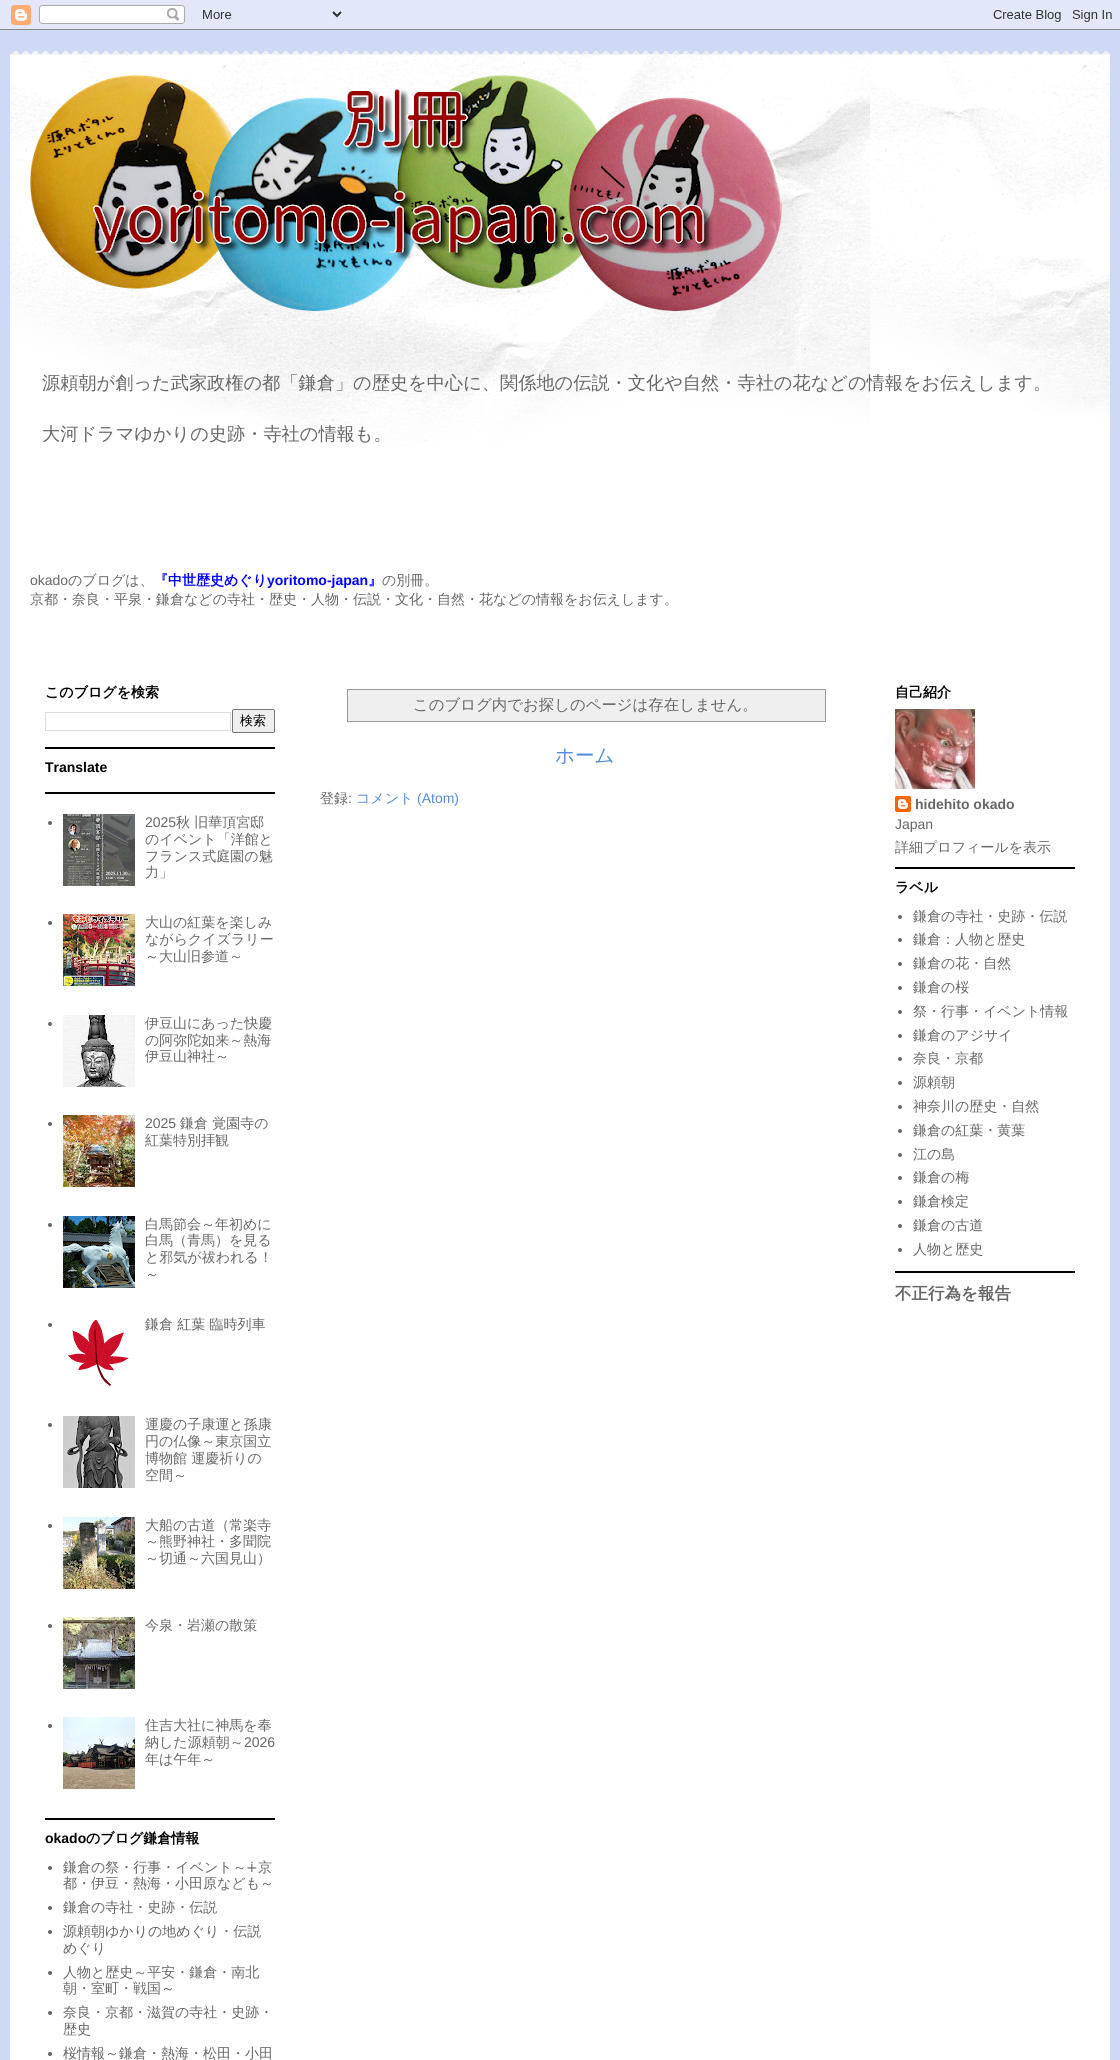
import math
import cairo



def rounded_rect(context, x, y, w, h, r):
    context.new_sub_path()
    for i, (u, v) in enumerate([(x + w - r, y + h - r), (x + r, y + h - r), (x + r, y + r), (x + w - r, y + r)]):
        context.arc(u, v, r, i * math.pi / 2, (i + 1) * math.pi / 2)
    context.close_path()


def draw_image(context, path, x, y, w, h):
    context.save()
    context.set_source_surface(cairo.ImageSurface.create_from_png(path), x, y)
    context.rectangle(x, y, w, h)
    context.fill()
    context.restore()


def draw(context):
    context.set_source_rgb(207 / 255, 217 / 255, 246 / 255)
    context.paint()
    draw_image(context, "images/1.png", 0, 0, 1120, 30)
    draw_image(context, "images/2.png", 10, 51, 1100, 4)
    context.set_source_rgb(1, 1, 1)
    context.rectangle(10, 55, 1100, 2005)
    context.fill()
    draw_image(context, "images/3.png", 10, 55, 1100, 392)
    draw_image(context, "images/4.png", 30, 75, 752, 236)
    context.set_source_rgb(0, 0, 0)
    context.rectangle(45, 747, 230, 2)
    context.fill()
    context.rectangle(45.5, 712.5, 185, 18)
    context.set_source_rgb(221 / 255, 221 / 255, 221 / 255)
    context.set_line_width(1)
    context.stroke()
    context.set_source_rgb(239 / 255, 239 / 255, 239 / 255)
    rounded_rect(context, 232.5, 709.5, 42, 23, 1.5)
    context.fill_preserve()
    context.set_source_rgb(118 / 255, 118 / 255, 118 / 255)
    context.stroke()
    context.set_source_rgb(0, 0, 0)
    context.rectangle(45, 792, 230, 2)
    context.fill()
    context.rectangle(45, 1818, 230, 2)
    context.fill()
    context.set_source_rgb(102 / 255, 102 / 255, 102 / 255)
    context.arc(50, 823, 2, 0, 2 * math.pi)
    context.fill()
    draw_image(context, "images/5.png", 63, 814, 72, 72)
    context.arc(50, 923, 2, 0, 2 * math.pi)
    context.fill()
    draw_image(context, "images/6.png", 63, 914, 72, 72)
    context.arc(50, 1024, 2, 0, 2 * math.pi)
    context.fill()
    draw_image(context, "images/7.png", 63, 1015, 72, 72)
    context.arc(50, 1124, 2, 0, 2 * math.pi)
    context.fill()
    draw_image(context, "images/8.png", 63, 1115, 72, 72)
    context.arc(50, 1225, 2, 0, 2 * math.pi)
    context.fill()
    draw_image(context, "images/9.png", 63, 1216, 72, 72)
    context.arc(50, 1325, 2, 0, 2 * math.pi)
    context.fill()
    draw_image(context, "images/10.png", 68, 1319, 61, 67)
    context.arc(50, 1425, 2, 0, 2 * math.pi)
    context.fill()
    draw_image(context, "images/11.png", 63, 1416, 72, 72)
    context.arc(50, 1526, 2, 0, 2 * math.pi)
    context.fill()
    draw_image(context, "images/12.png", 63, 1517, 72, 72)
    context.arc(50, 1626, 2, 0, 2 * math.pi)
    context.fill()
    draw_image(context, "images/13.png", 63, 1617, 72, 72)
    context.arc(50, 1726, 2, 0, 2 * math.pi)
    context.fill()
    draw_image(context, "images/14.png", 63, 1717, 72, 72)
    context.arc(50, 1868, 2, 0, 2 * math.pi)
    context.fill()
    context.arc(50, 1908, 2, 0, 2 * math.pi)
    context.fill()
    context.arc(50, 1932, 2, 0, 2 * math.pi)
    context.fill()
    context.arc(50, 1973, 2, 0, 2 * math.pi)
    context.fill()
    context.arc(50, 2013, 2, 0, 2 * math.pi)
    context.fill()
    context.arc(50, 2054, 2, 0, 2 * math.pi)
    context.fill()
    context.rectangle(347.5, 689.5, 478, 32)
    context.set_source_rgb(153 / 255, 153 / 255, 153 / 255)
    context.stroke()
    context.set_source_rgb(239 / 255, 239 / 255, 239 / 255)
    context.rectangle(348, 690, 477, 31)
    context.fill()
    context.set_source_rgb(0, 0, 0)
    context.rectangle(895, 867, 180, 2)
    context.fill()
    draw_image(context, "images/15.png", 895, 709, 80, 80)
    draw_image(context, "images/16.png", 895, 796, 16, 16)
    context.rectangle(895, 1271, 180, 2)
    context.fill()
    context.set_source_rgb(102 / 255, 102 / 255, 102 / 255)
    context.arc(900, 917, 2, 0, 2 * math.pi)
    context.fill()
    context.arc(900, 940, 2, 0, 2 * math.pi)
    context.fill()
    context.arc(900, 964, 2, 0, 2 * math.pi)
    context.fill()
    context.arc(900, 988, 2, 0, 2 * math.pi)
    context.fill()
    context.arc(900, 1012, 2, 0, 2 * math.pi)
    context.fill()
    context.arc(900, 1036, 2, 0, 2 * math.pi)
    context.fill()
    context.arc(900, 1059, 2, 0, 2 * math.pi)
    context.fill()
    context.arc(900, 1083, 2, 0, 2 * math.pi)
    context.fill()
    context.arc(900, 1107, 2, 0, 2 * math.pi)
    context.fill()
    context.arc(900, 1131, 2, 0, 2 * math.pi)
    context.fill()
    context.arc(900, 1155, 2, 0, 2 * math.pi)
    context.fill()
    context.arc(900, 1178, 2, 0, 2 * math.pi)
    context.fill()
    context.arc(900, 1202, 2, 0, 2 * math.pi)
    context.fill()
    context.arc(900, 1226, 2, 0, 2 * math.pi)
    context.fill()
    context.arc(900, 1250, 2, 0, 2 * math.pi)
    context.fill()
    context.select_font_face("WenQuanYi Zen Hei Medium")
    context.set_font_size(18.2)
    context.move_to(42, 389)
    context.show_text("源頼朝が創った武家政権の都「鎌倉」の歴史を中心に、関係地の伝説・文化や自然・寺社の花などの情報をお伝えします。")
    context.move_to(42, 440)
    context.show_text("大河ドラマゆかりの史跡・寺社の情報も。")
    context.select_font_face("Liberation Sans")
    context.set_font_size(14)
    context.move_to(30, 585)
    context.show_text("okado")
    context.select_font_face("WenQuanYi Zen Hei Medium")
    context.move_to(68, 585)
    context.show_text("のブログは、")
    context.select_font_face("WenQuanYi Zen Hei", cairo.FontSlant.NORMAL, cairo.FontWeight.BOLD)
    context.set_source_rgb(0, 0, 1)
    context.move_to(154, 585)
    context.show_text("『中世歴史めぐり")
    context.select_font_face("Liberation Sans", cairo.FontSlant.NORMAL, cairo.FontWeight.BOLD)
    context.move_to(267, 585)
    context.show_text("yoritomo-japan")
    context.select_font_face("WenQuanYi Zen Hei", cairo.FontSlant.NORMAL, cairo.FontWeight.BOLD)
    context.move_to(368, 585)
    context.show_text("』")
    context.select_font_face("WenQuanYi Zen Hei Medium")
    context.set_source_rgb(102 / 255, 102 / 255, 102 / 255)
    context.move_to(382, 585)
    context.show_text("の別冊。")
    context.move_to(30, 604)
    context.show_text("京都・奈良・平泉・鎌倉などの寺社・歴史・人物・伝説・文化・自然・花などの情報をお伝えします。")
    context.select_font_face("WenQuanYi Zen Hei", cairo.FontSlant.NORMAL, cairo.FontWeight.BOLD)
    context.set_source_rgb(0, 0, 0)
    context.move_to(45, 697)
    context.show_text("このブログを検索")
    context.select_font_face("WenQuanYi Zen Hei Medium")
    context.set_font_size(13)
    context.move_to(240, 725)
    context.show_text("検索")
    context.select_font_face("Liberation Sans", cairo.FontSlant.NORMAL, cairo.FontWeight.BOLD)
    context.set_font_size(14)
    context.move_to(45, 772)
    context.show_text("Translate")
    context.select_font_face("Liberation Sans")
    context.set_source_rgb(102 / 255, 102 / 255, 102 / 255)
    context.move_to(145, 827)
    context.show_text("2025")
    context.select_font_face("WenQuanYi Zen Hei Medium")
    context.move_to(176, 827)
    context.show_text("秋 旧華頂宮邸")
    context.move_to(145, 844)
    context.show_text("のイベント「洋館と")
    context.move_to(145, 861)
    context.show_text("フランス式庭園の魅")
    context.move_to(145, 877)
    context.show_text("力」")
    context.move_to(145, 927)
    context.show_text("大山の紅葉を楽しみ")
    context.move_to(145, 944)
    context.show_text("ながらクイズラリー")
    context.move_to(145, 961)
    context.show_text("～大山旧参道～")
    context.move_to(145, 1028)
    context.show_text("伊豆山にあった快慶")
    context.move_to(145, 1045)
    context.show_text("の阿弥陀如来～熱海")
    context.move_to(145, 1061)
    context.show_text("伊豆山神社～")
    context.select_font_face("Liberation Sans")
    context.move_to(145, 1128)
    context.show_text("2025")
    context.select_font_face("WenQuanYi Zen Hei Medium")
    context.move_to(180, 1128)
    context.show_text("鎌倉 覚園寺の")
    context.move_to(145, 1145)
    context.show_text("紅葉特別拝観")
    context.move_to(145, 1229)
    context.show_text("白馬節会～年初めに")
    context.move_to(145, 1245)
    context.show_text("白馬（青馬）を見る")
    context.move_to(145, 1262)
    context.show_text("と邪気が祓われる！")
    context.move_to(145, 1279)
    context.show_text("～")
    context.move_to(145, 1329)
    context.show_text("鎌倉 紅葉 臨時列車")
    context.move_to(145, 1429)
    context.show_text("運慶の子康運と孫康")
    context.move_to(145, 1446)
    context.show_text("円の仏像～東京国立")
    context.move_to(145, 1463)
    context.show_text("博物館 運慶祈りの")
    context.move_to(145, 1480)
    context.show_text("空間～")
    context.move_to(145, 1530)
    context.show_text("大船の古道（常楽寺")
    context.move_to(145, 1546)
    context.show_text("～熊野神社・多聞院")
    context.move_to(145, 1563)
    context.show_text("～切通～六国見山）")
    context.move_to(145, 1630)
    context.show_text("今泉・岩瀬の散策")
    context.move_to(145, 1730)
    context.show_text("住吉大社に神馬を奉")
    context.move_to(145, 1747)
    context.show_text("納した源頼朝～")
    context.select_font_face("Liberation Sans")
    context.move_to(244, 1747)
    context.show_text("2026")
    context.select_font_face("WenQuanYi Zen Hei Medium")
    context.move_to(145, 1764)
    context.show_text("年は午年～")
    context.select_font_face("Liberation Sans", cairo.FontSlant.NORMAL, cairo.FontWeight.BOLD)
    context.set_source_rgb(0, 0, 0)
    context.move_to(45, 1843)
    context.show_text("okado")
    context.select_font_face("WenQuanYi Zen Hei", cairo.FontSlant.NORMAL, cairo.FontWeight.BOLD)
    context.move_to(86, 1843)
    context.show_text("のブログ鎌倉情報")
    context.select_font_face("WenQuanYi Zen Hei Medium")
    context.set_source_rgb(102 / 255, 102 / 255, 102 / 255)
    context.move_to(63, 1872)
    context.show_text("鎌倉の祭・行事・イベント～")
    context.select_font_face("DejaVu Sans")
    context.move_to(246, 1872)
    context.show_text("∔")
    context.select_font_face("WenQuanYi Zen Hei Medium")
    context.move_to(258, 1872)
    context.show_text("京")
    context.move_to(63, 1888)
    context.show_text("都・伊豆・熱海・小田原なども～")
    context.move_to(63, 1912)
    context.show_text("鎌倉の寺社・史跡・伝説")
    context.move_to(63, 1936)
    context.show_text("源頼朝ゆかりの地めぐり・伝説")
    context.move_to(63, 1953)
    context.show_text("めぐり")
    context.move_to(63, 1977)
    context.show_text("人物と歴史～平安・鎌倉・南北")
    context.move_to(63, 1993)
    context.show_text("朝・室町・戦国～")
    context.move_to(63, 2017)
    context.show_text("奈良・京都・滋賀の寺社・史跡・")
    context.move_to(63, 2034)
    context.show_text("歴史")
    context.move_to(63, 2058)
    context.show_text("桜情報～鎌倉・熱海・松田・小田")
    context.set_font_size(15.4)
    context.move_to(413, 710)
    context.show_text("このブログ内でお探しのページは存在しません。")
    context.set_font_size(19.5)
    context.set_source_rgb(83 / 255, 140 / 255, 214 / 255)
    context.move_to(555, 762)
    context.show_text("ホーム")
    context.set_font_size(14)
    context.set_source_rgb(102 / 255, 102 / 255, 102 / 255)
    context.move_to(320, 803)
    context.show_text("登録")
    context.select_font_face("Liberation Sans")
    context.move_to(348, 803)
    context.show_text(":")
    context.select_font_face("WenQuanYi Zen Hei Medium")
    context.set_source_rgb(83 / 255, 140 / 255, 214 / 255)
    context.move_to(356, 803)
    context.show_text("コメント")
    context.select_font_face("Liberation Sans")
    context.move_to(417, 803)
    context.show_text("(Atom)")
    context.select_font_face("WenQuanYi Zen Hei", cairo.FontSlant.NORMAL, cairo.FontWeight.BOLD)
    context.set_source_rgb(0, 0, 0)
    context.move_to(895, 697)
    context.show_text("自己紹介")
    context.select_font_face("Liberation Sans", cairo.FontSlant.NORMAL, cairo.FontWeight.BOLD)
    context.set_source_rgb(102 / 255, 102 / 255, 102 / 255)
    context.move_to(915, 809)
    context.show_text("hidehito okado")
    context.select_font_face("Liberation Sans")
    context.move_to(895, 829)
    context.show_text("Japan")
    context.select_font_face("WenQuanYi Zen Hei Medium")
    context.move_to(895, 852)
    context.show_text("詳細プロフィールを表示")
    context.select_font_face("WenQuanYi Zen Hei", cairo.FontSlant.NORMAL, cairo.FontWeight.BOLD)
    context.set_source_rgb(0, 0, 0)
    context.move_to(895, 892)
    context.show_text("ラベル")
    context.select_font_face("WenQuanYi Zen Hei Medium")
    context.set_source_rgb(102 / 255, 102 / 255, 102 / 255)
    context.move_to(913, 921)
    context.show_text("鎌倉の寺社・史跡・伝説")
    context.move_to(913, 944)
    context.show_text("鎌倉：人物と歴史")
    context.move_to(913, 968)
    context.show_text("鎌倉の花・自然")
    context.move_to(913, 992)
    context.show_text("鎌倉の桜")
    context.move_to(913, 1016)
    context.show_text("祭・行事・イベント情報")
    context.move_to(913, 1040)
    context.show_text("鎌倉のアジサイ")
    context.move_to(913, 1063)
    context.show_text("奈良・京都")
    context.move_to(913, 1087)
    context.show_text("源頼朝")
    context.move_to(913, 1111)
    context.show_text("神奈川の歴史・自然")
    context.move_to(913, 1135)
    context.show_text("鎌倉の紅葉・黄葉")
    context.move_to(913, 1159)
    context.show_text("江の島")
    context.move_to(913, 1182)
    context.show_text("鎌倉の梅")
    context.move_to(913, 1206)
    context.show_text("鎌倉検定")
    context.move_to(913, 1230)
    context.show_text("鎌倉の古道")
    context.move_to(913, 1254)
    context.show_text("人物と歴史")
    context.select_font_face("WenQuanYi Zen Hei", cairo.FontSlant.NORMAL, cairo.FontWeight.BOLD)
    context.set_font_size(16.5)
    context.move_to(895, 1299)
    context.show_text("不正行為を報告")


surface = cairo.ImageSurface(cairo.Format.RGB24, 1120, 2060)
context = cairo.Context(surface)
options = cairo.FontOptions()
options.set_hint_metrics(cairo.HintMetrics.OFF)
options.set_hint_style(cairo.HintStyle.NONE)
context.set_font_options(options)
context.set_miter_limit(4)
draw(context)
surface.write_to_png("out.png")
